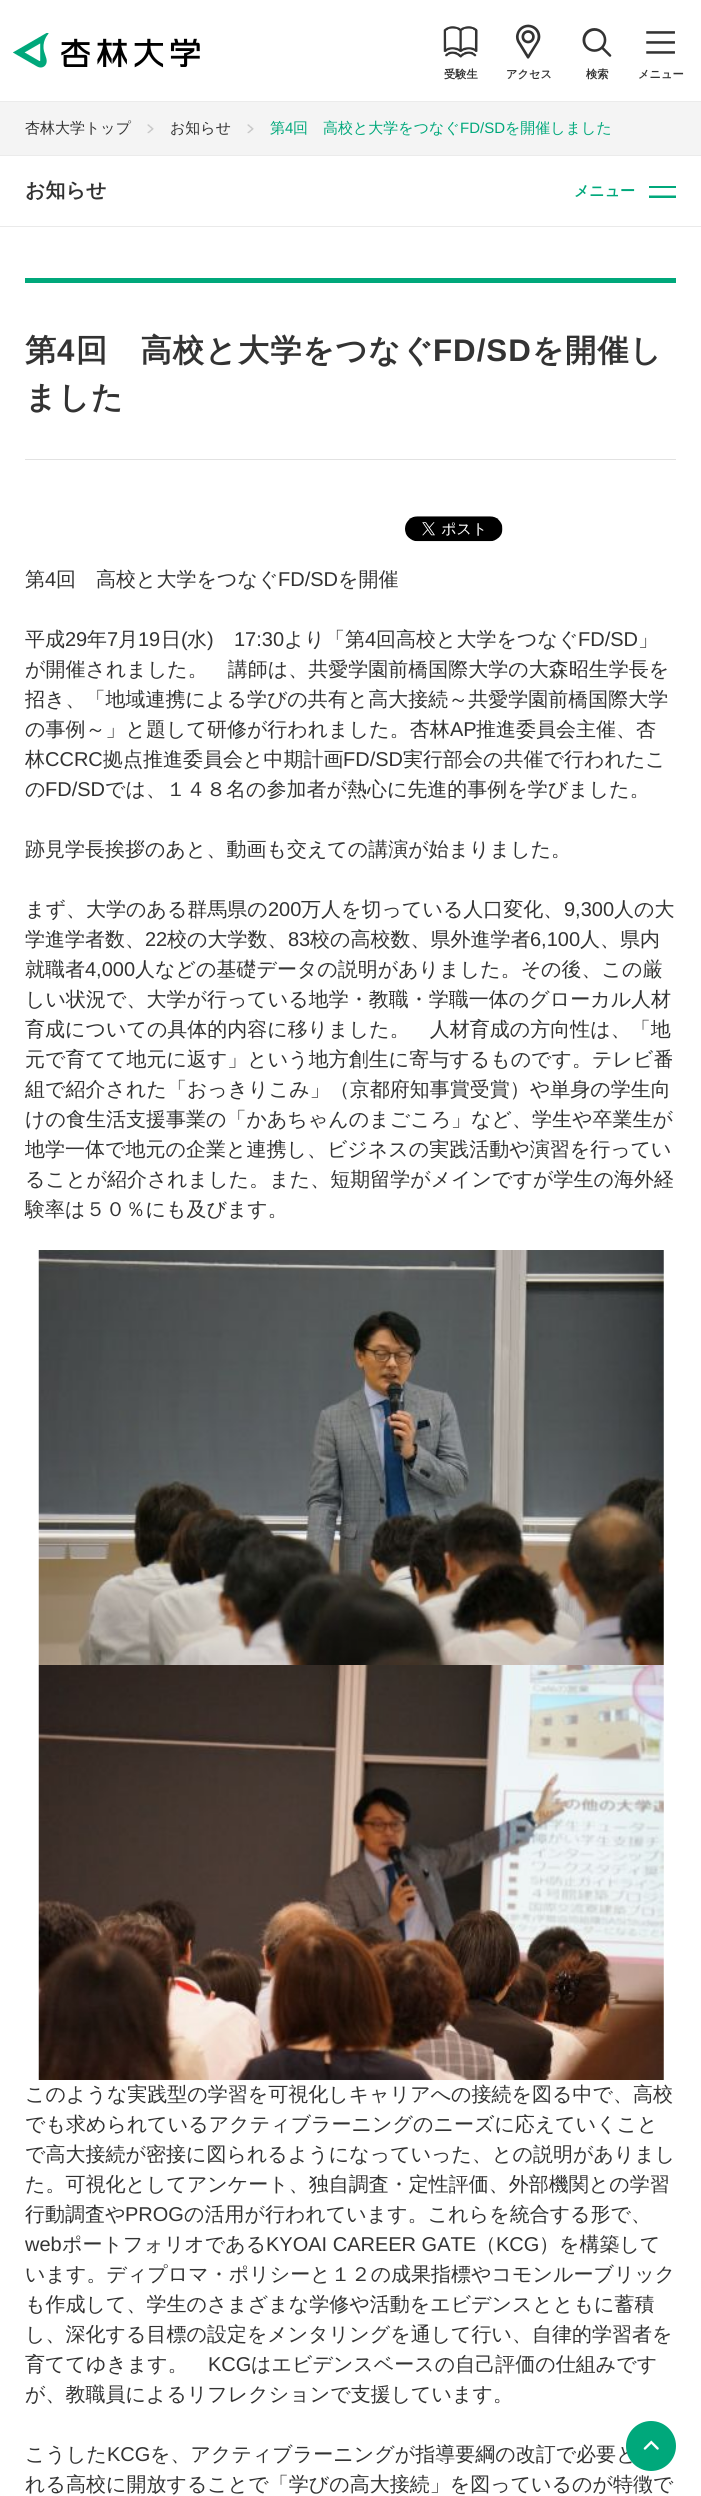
import math
import cairo



def draw_spaced(context, x, y, s, letter, word):
    context.move_to(x, y)
    for ch in s:
        context.show_text(ch)
        context.rel_move_to(letter + word * (ch == ' '), 0)


def draw_image(context, path, x, y, w, h):
    context.save()
    context.set_source_surface(cairo.ImageSurface.create_from_png(path), x, y)
    context.rectangle(x, y, w, h)
    context.fill()
    context.restore()


def draw(context):
    context.set_source_rgb(1, 1, 1)
    context.paint()
    draw_image(context, "images/1.png", 13, 33, 187, 35)
    draw_image(context, "images/2.png", 443, 26, 35, 32)
    draw_image(context, "images/3.png", 515, 24, 26, 35)
    draw_image(context, "images/4.png", 582, 28, 30, 29)
    draw_image(context, "images/5.png", 646, 31, 29, 23)
    context.set_source_rgb(244 / 255, 244 / 255, 244 / 255)
    context.rectangle(0, 102, 701, 53)
    context.fill()
    context.set_source_rgb(235 / 255, 235 / 255, 235 / 255)
    context.rectangle(0, 101, 701, 1)
    context.fill()
    context.rectangle(0, 155, 701, 1)
    context.fill()
    draw_image(context, "images/6.png", 147, 124, 7, 10)
    draw_image(context, "images/6.png", 247, 124, 7, 10)
    context.set_source_rgb(234 / 255, 234 / 255, 234 / 255)
    context.rectangle(0, 226, 701, 1)
    context.fill()
    context.set_source_rgb(0, 168 / 255, 123 / 255)
    context.new_path()
    context.move_to(649, 186)
    context.line_to(676, 186)
    context.line_to(676, 188)
    context.line_to(649, 188)
    context.close_path()
    context.move_to(649, 195.5)
    context.line_to(676, 195.5)
    context.line_to(676, 198)
    context.line_to(649, 198)
    context.close_path()
    context.fill()
    context.rectangle(25, 278, 651, 5)
    context.fill()
    context.set_source_rgb(226 / 255, 226 / 255, 226 / 255)
    context.rectangle(25, 459, 651, 1)
    context.fill()
    draw_image(context, "images/7.png", 405, 516, 98, 26)
    draw_image(context, "images/8.png", 38, 1250, 626, 415)
    draw_image(context, "images/9.png", 38, 1665, 626, 415)
    context.select_font_face("WenQuanYi Zen Hei", cairo.FontSlant.NORMAL, cairo.FontWeight.BOLD)
    context.set_font_size(11.25)
    context.set_source_rgb(51 / 255, 51 / 255, 51 / 255)
    context.move_to(444, 78)
    context.show_text("受験生")
    context.move_to(506, 78)
    context.show_text("アクセス")
    context.move_to(586, 78)
    context.show_text("検索")
    context.move_to(638, 78)
    context.show_text("メニュー")
    context.select_font_face("WenQuanYi Zen Hei Medium")
    context.set_font_size(15)
    context.move_to(25, 133)
    context.show_text("杏林大学トップ")
    context.move_to(170, 133)
    context.show_text("お知らせ")
    context.set_source_rgb(0, 168 / 255, 123 / 255)
    context.move_to(270, 133)
    context.show_text("第")
    context.select_font_face("Liberation Sans")
    context.move_to(285, 133)
    context.show_text("4")
    context.select_font_face("WenQuanYi Zen Hei Medium")
    context.move_to(293, 133)
    context.show_text("回　高校と大学をつなぐ")
    context.select_font_face("Liberation Sans")
    context.move_to(460, 133)
    context.show_text("FD/SD")
    context.select_font_face("WenQuanYi Zen Hei Medium")
    context.move_to(505, 133)
    context.show_text("を開催しました")
    context.select_font_face("WenQuanYi Zen Hei", cairo.FontSlant.NORMAL, cairo.FontWeight.BOLD)
    context.set_font_size(20)
    context.set_source_rgb(51 / 255, 51 / 255, 51 / 255)
    context.move_to(25, 197)
    context.show_text("お知らせ")
    context.set_font_size(15)
    context.set_source_rgb(0, 168 / 255, 123 / 255)
    context.move_to(574, 196)
    context.show_text("メニュー")
    context.set_font_size(31.25)
    context.set_source_rgb(51 / 255, 51 / 255, 51 / 255)
    draw_spaced(context, 25, 361, "第", 1, 0)
    context.select_font_face("Liberation Sans", cairo.FontSlant.NORMAL, cairo.FontWeight.BOLD)
    draw_spaced(context, 57, 361, "4", 1, 0)
    context.select_font_face("WenQuanYi Zen Hei", cairo.FontSlant.NORMAL, cairo.FontWeight.BOLD)
    draw_spaced(context, 76, 361, "回　高校と大学をつなぐ", 1, 0)
    context.select_font_face("Liberation Sans", cairo.FontSlant.NORMAL, cairo.FontWeight.BOLD)
    draw_spaced(context, 433, 361, "FD/SD", 1, 0)
    context.select_font_face("WenQuanYi Zen Hei", cairo.FontSlant.NORMAL, cairo.FontWeight.BOLD)
    draw_spaced(context, 532, 361, "を開催し", 1, 0)
    draw_spaced(context, 25, 408, "ました", 1, 0)
    context.select_font_face("WenQuanYi Zen Hei Medium")
    context.set_font_size(20)
    context.move_to(25, 586)
    context.show_text("第")
    context.select_font_face("Liberation Sans")
    context.move_to(45, 586)
    context.show_text("4")
    context.select_font_face("WenQuanYi Zen Hei Medium")
    context.move_to(56, 586)
    context.show_text("回　高校と大学をつなぐ")
    context.select_font_face("Liberation Sans")
    context.move_to(278, 586)
    context.show_text("FD/SD")
    context.select_font_face("WenQuanYi Zen Hei Medium")
    context.move_to(338, 586)
    context.show_text("を開催")
    context.move_to(25, 646)
    context.show_text("平成")
    context.select_font_face("Liberation Sans")
    context.move_to(65, 646)
    context.show_text("29")
    context.select_font_face("WenQuanYi Zen Hei Medium")
    context.move_to(87, 646)
    context.show_text("年")
    context.select_font_face("Liberation Sans")
    context.move_to(107, 646)
    context.show_text("7")
    context.select_font_face("WenQuanYi Zen Hei Medium")
    context.move_to(118, 646)
    context.show_text("月")
    context.select_font_face("Liberation Sans")
    context.move_to(138, 646)
    context.show_text("19")
    context.select_font_face("WenQuanYi Zen Hei Medium")
    context.move_to(161, 646)
    context.show_text("日")
    context.select_font_face("Liberation Sans")
    context.move_to(181, 646)
    context.show_text("(")
    context.select_font_face("WenQuanYi Zen Hei Medium")
    context.move_to(187, 646)
    context.show_text("水")
    context.select_font_face("Liberation Sans")
    context.move_to(207, 646)
    context.show_text(")")
    context.move_to(234, 646)
    context.show_text("17:30")
    context.select_font_face("WenQuanYi Zen Hei Medium")
    context.move_to(284, 646)
    context.show_text("より「第")
    context.select_font_face("Liberation Sans")
    context.move_to(365, 646)
    context.show_text("4")
    context.select_font_face("WenQuanYi Zen Hei Medium")
    context.move_to(376, 646)
    context.show_text("回高校と大学をつなぐ")
    context.select_font_face("Liberation Sans")
    context.move_to(578, 646)
    context.show_text("FD/SD")
    context.select_font_face("WenQuanYi Zen Hei Medium")
    context.move_to(638, 646)
    context.show_text("」")
    context.move_to(25, 676)
    context.show_text("が開催されました。　講師は、共愛学園前橋国際大学の大森昭生学長を")
    context.move_to(25, 706)
    context.show_text("招き、「地域連携による学びの共有と高大接続～共愛学園前橋国際大学")
    context.move_to(25, 736)
    context.show_text("の事例～」と題して研修が行われました。杏林")
    context.select_font_face("Liberation Sans")
    context.move_to(450, 736)
    context.show_text("AP")
    context.select_font_face("WenQuanYi Zen Hei Medium")
    context.move_to(476, 736)
    context.show_text("推進委員会主催、杏")
    context.move_to(25, 766)
    context.show_text("林")
    context.select_font_face("Liberation Sans")
    context.move_to(45, 766)
    context.show_text("CCRC")
    context.select_font_face("WenQuanYi Zen Hei Medium")
    context.move_to(103, 766)
    context.show_text("拠点推進委員会と中期計画")
    context.select_font_face("Liberation Sans")
    context.move_to(343, 766)
    context.show_text("FD/SD")
    context.select_font_face("WenQuanYi Zen Hei Medium")
    context.move_to(403, 766)
    context.show_text("実行部会の共催で行われたこ")
    context.move_to(25, 796)
    context.show_text("の")
    context.select_font_face("Liberation Sans")
    context.move_to(45, 796)
    context.show_text("FD/SD")
    context.select_font_face("WenQuanYi Zen Hei Medium")
    context.move_to(105, 796)
    context.show_text("では、１４８名の参加者が熱心に先進的事例を学びました。")
    context.move_to(25, 856)
    context.show_text("跡見学長挨拶のあと、動画も交えての講演が始まりました。")
    context.move_to(25, 916)
    context.show_text("まず、大学のある群馬県の")
    context.select_font_face("Liberation Sans")
    context.move_to(268, 916)
    context.show_text("200")
    context.select_font_face("WenQuanYi Zen Hei Medium")
    context.move_to(301, 916)
    context.show_text("万人を切っている人口変化、")
    context.select_font_face("Liberation Sans")
    context.move_to(564, 916)
    context.show_text("9,300")
    context.select_font_face("WenQuanYi Zen Hei Medium")
    context.move_to(614, 916)
    context.show_text("人の大")
    context.move_to(25, 946)
    context.show_text("学進学者数、")
    context.select_font_face("Liberation Sans")
    context.move_to(145, 946)
    context.show_text("22")
    context.select_font_face("WenQuanYi Zen Hei Medium")
    context.move_to(167, 946)
    context.show_text("校の大学数、")
    context.select_font_face("Liberation Sans")
    context.move_to(288, 946)
    context.show_text("83")
    context.select_font_face("WenQuanYi Zen Hei Medium")
    context.move_to(310, 946)
    context.show_text("校の高校数、県外進学者")
    context.select_font_face("Liberation Sans")
    context.move_to(530, 946)
    context.show_text("6,100")
    context.select_font_face("WenQuanYi Zen Hei Medium")
    context.move_to(580, 946)
    context.show_text("人、県内")
    context.move_to(25, 976)
    context.show_text("就職者")
    context.select_font_face("Liberation Sans")
    context.move_to(85, 976)
    context.show_text("4,000")
    context.select_font_face("WenQuanYi Zen Hei Medium")
    context.move_to(135, 976)
    context.show_text("人などの基礎データの説明がありました。その後、この厳")
    context.move_to(25, 1006)
    context.show_text("しい状況で、大学が行っている地学・教職・学職一体のグローカル人材")
    context.move_to(25, 1036)
    context.show_text("育成についての具体的内容に移りました。　人材育成の方向性は、「地")
    context.move_to(25, 1066)
    context.show_text("元で育てて地元に返す」という地方創生に寄与するものです。テレビ番")
    context.move_to(25, 1096)
    context.show_text("組で紹介された「おっきりこみ」（京都府知事賞受賞）や単身の学生向")
    context.move_to(25, 1126)
    context.show_text("けの食生活支援事業の「かあちゃんのまごころ」など、学生や卒業生が")
    context.move_to(25, 1156)
    context.show_text("地学一体で地元の企業と連携し、ビジネスの実践活動や演習を行ってい")
    context.move_to(25, 1186)
    context.show_text("ることが紹介されました。また、短期留学がメインですが学生の海外経")
    context.move_to(25, 1216)
    context.show_text("験率は５０％にも及びます。")
    context.move_to(25, 2101)
    context.show_text("このような実践型の学習を可視化しキャリアへの接続を図る中で、高校")
    context.move_to(25, 2131)
    context.show_text("でも求められているアクティブラーニングのニーズに応えていくこと")
    context.move_to(25, 2161)
    context.show_text("で高大接続が密接に図られるようになっていった、との説明がありまし")
    context.move_to(25, 2191)
    context.show_text("た。可視化としてアンケート、独自調査・定性評価、外部機関との学習")
    context.move_to(25, 2221)
    context.show_text("行動調査や")
    context.select_font_face("Liberation Sans")
    context.move_to(125, 2221)
    context.show_text("PROG")
    context.select_font_face("WenQuanYi Zen Hei Medium")
    context.move_to(184, 2221)
    context.show_text("の活用が行われています。これらを統合する形で、")
    context.select_font_face("Liberation Sans")
    context.move_to(25, 2251)
    context.show_text("web")
    context.select_font_face("WenQuanYi Zen Hei Medium")
    context.move_to(62, 2251)
    context.show_text("ポートフォリオである")
    context.select_font_face("Liberation Sans")
    context.move_to(266, 2251)
    context.show_text("KYOAI CAREER GATE")
    context.select_font_face("WenQuanYi Zen Hei Medium")
    context.move_to(476, 2251)
    context.show_text("（")
    context.select_font_face("Liberation Sans")
    context.move_to(496, 2251)
    context.show_text("KCG")
    context.select_font_face("WenQuanYi Zen Hei Medium")
    context.move_to(539, 2251)
    context.show_text("）を構築して")
    context.move_to(25, 2281)
    context.show_text("います。ディプロマ・ポリシーと１２の成果指標やコモンルーブリック")
    context.move_to(25, 2311)
    context.show_text("も作成して、学生のさまざまな学修や活動をエビデンスとともに蓄積")
    context.move_to(25, 2341)
    context.show_text("し、深化する目標の設定をメンタリングを通して行い、自律的学習者を")
    context.move_to(25, 2371)
    context.show_text("育ててゆきます。")
    context.select_font_face("Liberation Sans")
    context.move_to(208, 2371)
    context.show_text("KCG")
    context.select_font_face("WenQuanYi Zen Hei Medium")
    context.move_to(251, 2371)
    context.show_text("はエビデンスベースの自己評価の仕組みです")
    context.move_to(25, 2401)
    context.show_text("が、教職員によるリフレクションで支援しています。")
    context.move_to(25, 2461)
    context.show_text("こうした")
    context.select_font_face("Liberation Sans")
    context.move_to(107, 2461)
    context.show_text("KCG")
    context.select_font_face("WenQuanYi Zen Hei Medium")
    context.move_to(150, 2461)
    context.show_text("を、アクティブラーニングが指導要綱の改訂で必要と")
    context.move_to(25, 2491)
    context.show_text("れる高校に開放することで「学びの高大接続」を図っているのが特徴で")
    context.set_source_rgb(0, 168 / 255, 123 / 255)
    context.new_path()
    context.arc(651, 2446, 25, 0, 2 * math.pi)
    context.fill()
    draw_image(context, "images/10.png", 643, 2440, 16, 10)


surface = cairo.ImageSurface(cairo.Format.RGB24, 701, 2496)
context = cairo.Context(surface)
options = cairo.FontOptions()
options.set_hint_metrics(cairo.HintMetrics.OFF)
options.set_hint_style(cairo.HintStyle.NONE)
context.set_font_options(options)
context.set_miter_limit(4)
draw(context)
surface.write_to_png("out.png")
